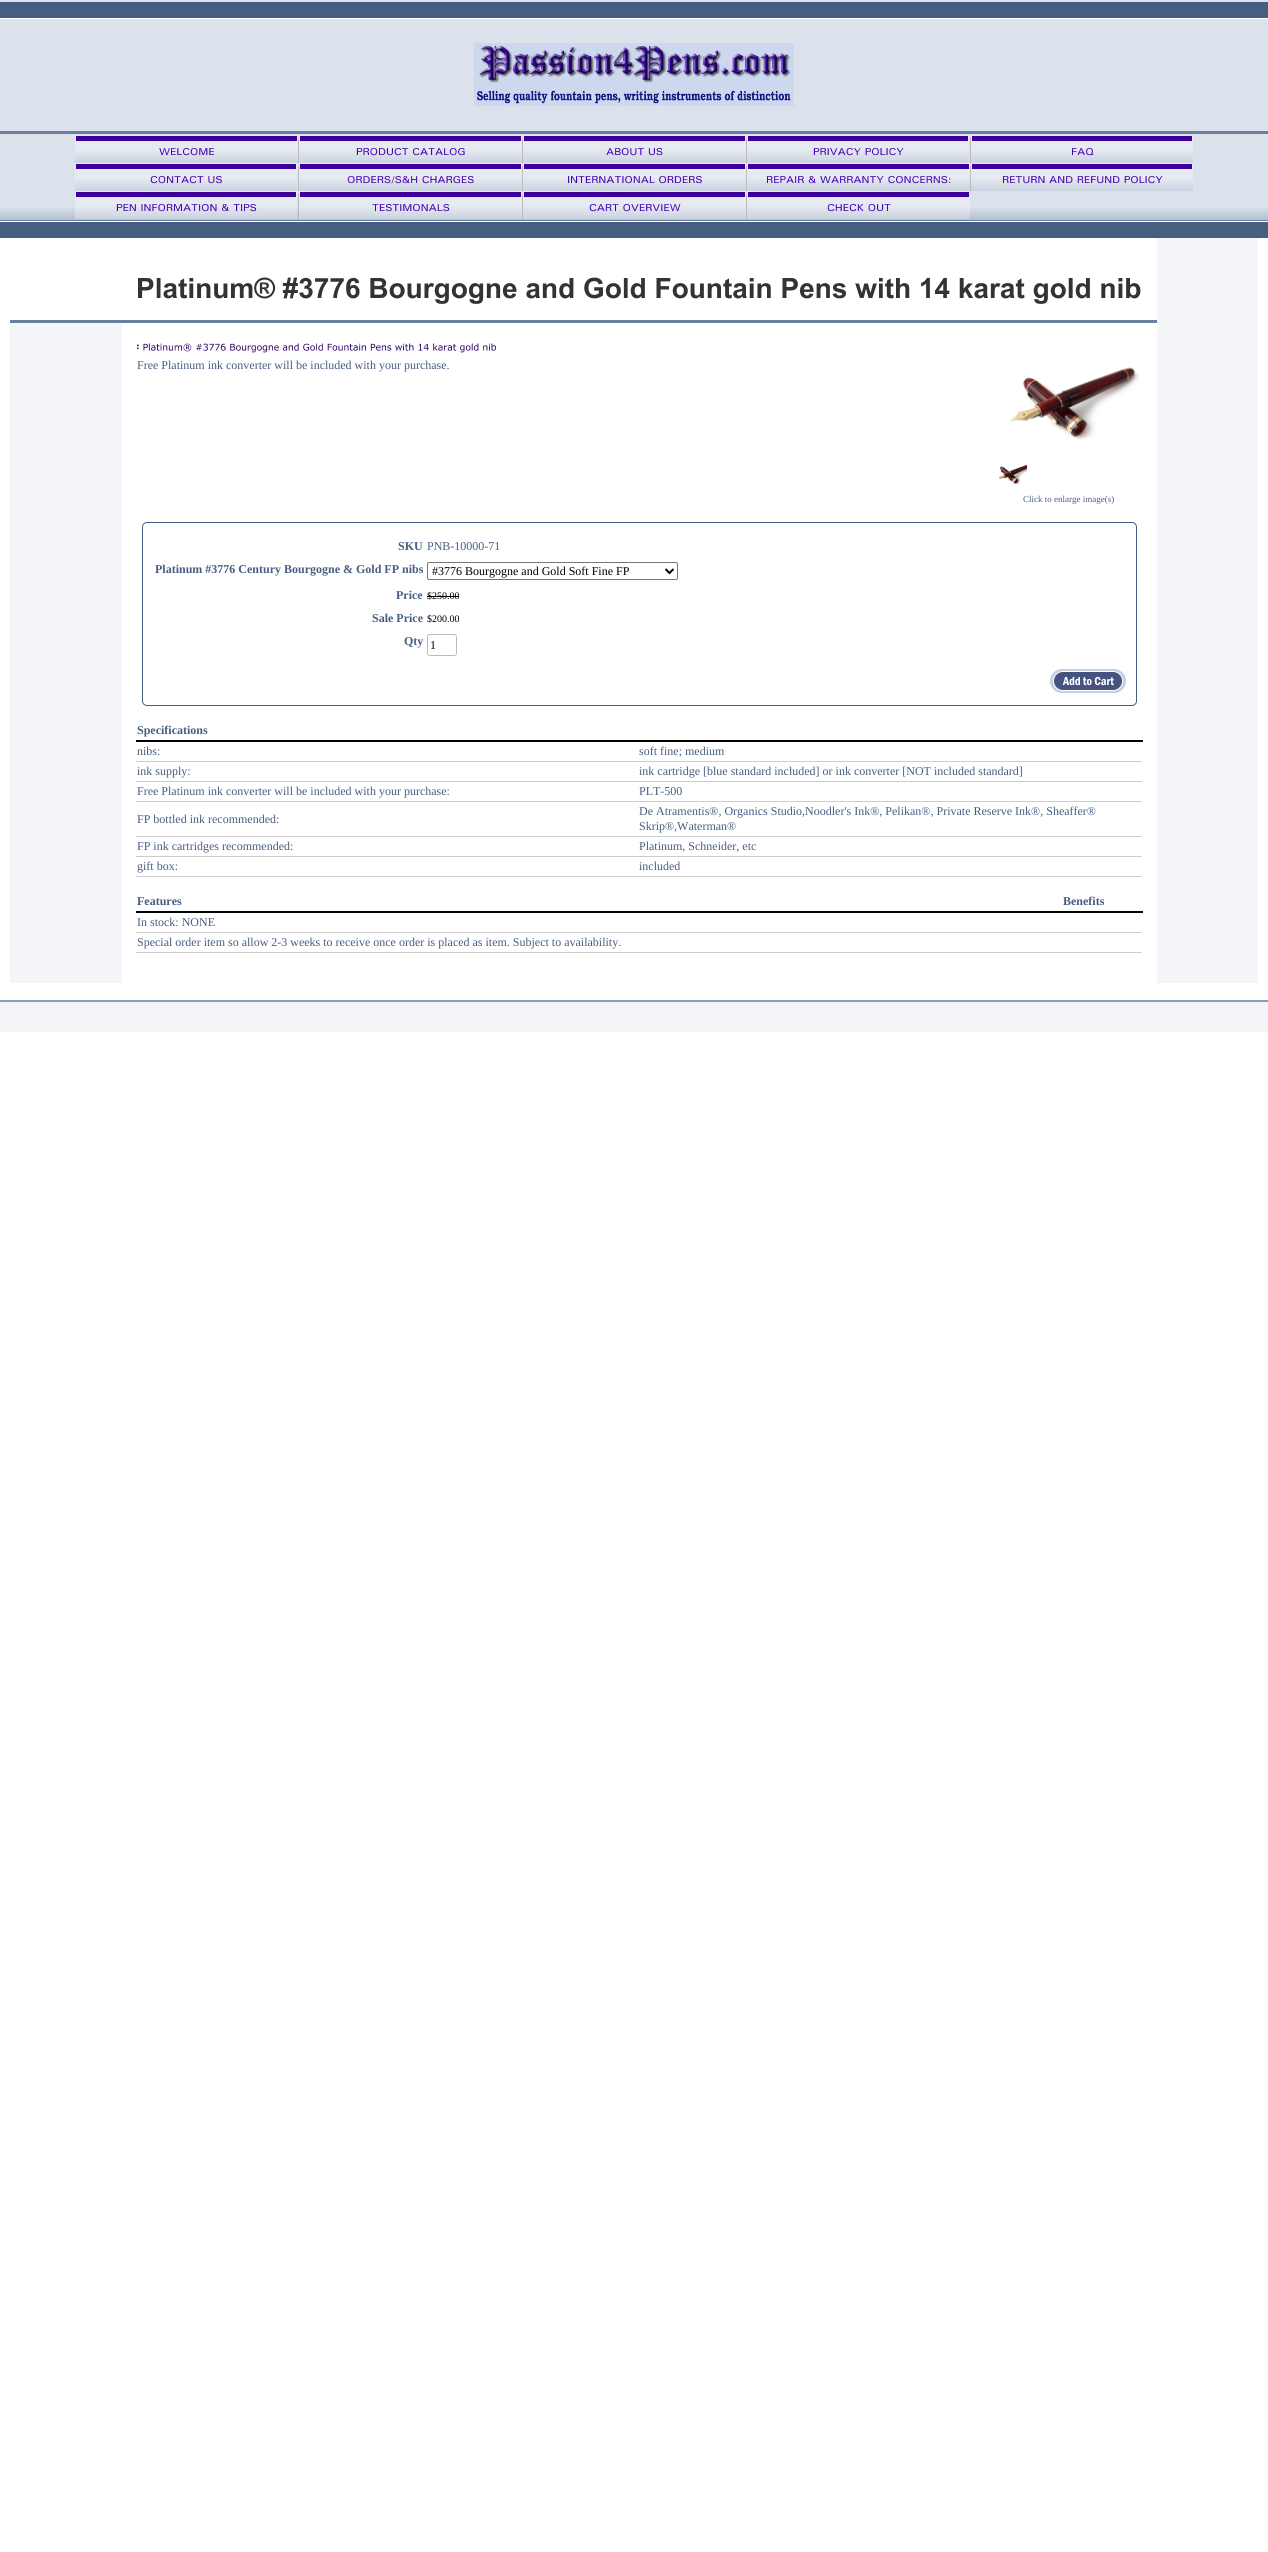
import math
import cairo



def rounded_rect(context, x, y, w, h, r):
    context.new_sub_path()
    for i, (u, v) in enumerate([(x + w - r, y + h - r), (x + r, y + h - r), (x + r, y + r), (x + w - r, y + r)]):
        context.arc(u, v, r, i * math.pi / 2, (i + 1) * math.pi / 2)
    context.close_path()


def draw_image(context, path, x, y, w, h):
    context.save()
    context.set_source_surface(cairo.ImageSurface.create_from_png(path), x, y)
    context.rectangle(x, y, w, h)
    context.fill()
    context.restore()


def draw(context):
    context.set_source_rgb(1, 1, 1)
    context.paint()
    context.set_source_rgb(219 / 255, 226 / 255, 235 / 255)
    context.rectangle(0, 0, 1268, 208)
    context.fill()
    context.set_source_rgb(70 / 255, 94 / 255, 128 / 255)
    context.rectangle(0, 2, 1268, 16)
    context.fill()
    context.set_source_rgb(1, 1, 1)
    context.rectangle(0, 18, 1268, 1)
    context.fill()
    context.set_source_rgb(105 / 255, 127 / 255, 159 / 255)
    context.rectangle(0, 131, 1268, 3)
    context.fill()
    draw_image(context, "images/1.png", 474, 43, 320, 63)
    draw_image(context, "images/2.png", 0, 208, 1268, 12)
    context.rectangle(0, 220, 1268, 1)
    context.fill()
    draw_image(context, "images/3.png", 75, 135, 223, 28)
    draw_image(context, "images/4.png", 298, 135, 224, 28)
    draw_image(context, "images/5.png", 522, 135, 224, 28)
    draw_image(context, "images/6.png", 746, 135, 223, 28)
    draw_image(context, "images/7.png", 970, 135, 223, 28)
    draw_image(context, "images/8.png", 75, 163, 222, 28)
    draw_image(context, "images/9.png", 298, 163, 224, 28)
    draw_image(context, "images/10.png", 522, 163, 224, 28)
    draw_image(context, "images/11.png", 746, 163, 224, 28)
    draw_image(context, "images/12.png", 970, 163, 223, 28)
    draw_image(context, "images/13.png", 75, 191, 222, 28)
    draw_image(context, "images/14.png", 298, 191, 224, 28)
    draw_image(context, "images/15.png", 522, 191, 224, 28)
    draw_image(context, "images/16.png", 746, 191, 224, 28)
    context.set_source_rgb(70 / 255, 94 / 255, 128 / 255)
    context.rectangle(0, 222, 1268, 16)
    context.fill()
    draw_image(context, "images/17.png", 138, 277, 1003, 27)
    context.set_source_rgb(243 / 255, 245 / 255, 248 / 255)
    context.rectangle(1157, 238, 101, 745)
    context.fill()
    context.set_source_rgb(105 / 255, 127 / 255, 159 / 255)
    context.rectangle(10, 320, 1147, 3)
    context.fill()
    context.set_source_rgb(243 / 255, 245 / 255, 248 / 255)
    context.rectangle(10, 323, 112, 660)
    context.fill()
    draw_image(context, "images/18.png", 137, 343, 359, 10)
    draw_image(context, "images/19.png", 1010, 367, 129, 73)
    draw_image(context, "images/20.png", 999, 464, 28, 21)
    rounded_rect(context, 142.5, 522.5, 994, 183, 4.5)
    context.set_source_rgb(70 / 255, 94 / 255, 128 / 255)
    context.set_line_width(1)
    context.stroke()
    rounded_rect(context, 427.5, 562.5, 250, 17, 1.5)
    context.set_source_rgb(118 / 255, 118 / 255, 118 / 255)
    context.stroke()
    context.new_path()
    context.move_to(665.5, 569)
    context.line_to(669.5, 573)
    context.line_to(673.5, 569)
    context.set_source_rgb(0, 0, 0)
    context.set_line_width(2)
    context.stroke()
    context.rectangle(427, 596, 32, 1)
    context.fill()
    rounded_rect(context, 427.5, 634.5, 29, 21, 2.5)
    context.set_source_rgb(187 / 255, 187 / 255, 187 / 255)
    context.set_line_width(1)
    context.stroke()
    context.set_source_rgb(1, 1, 1)
    rounded_rect(context, 428, 635, 28, 20, 3)
    context.fill()
    draw_image(context, "images/21.png", 1050, 669, 76, 24)
    context.set_source_rgb(0, 0, 0)
    context.rectangle(136, 740, 1007, 2)
    context.fill()
    context.set_source_rgb(204 / 255, 204 / 255, 204 / 255)
    context.rectangle(136, 761, 1006, 1)
    context.fill()
    context.rectangle(136, 781, 1006, 1)
    context.fill()
    context.rectangle(136, 801, 1006, 1)
    context.fill()
    context.rectangle(136, 836, 1006, 1)
    context.fill()
    context.rectangle(136, 856, 1006, 1)
    context.fill()
    context.rectangle(136, 876, 1006, 1)
    context.fill()
    context.set_source_rgb(0, 0, 0)
    context.rectangle(136, 911, 1007, 2)
    context.fill()
    context.set_source_rgb(204 / 255, 204 / 255, 204 / 255)
    context.rectangle(136, 932, 1006, 1)
    context.fill()
    context.rectangle(136, 952, 1006, 1)
    context.fill()
    context.set_source_rgb(139 / 255, 158 / 255, 185 / 255)
    context.rectangle(0, 1000, 1268, 2)
    context.fill()
    context.set_source_rgb(243 / 255, 245 / 255, 248 / 255)
    context.rectangle(0, 1002, 1268, 30)
    context.fill()
    context.select_font_face("Liberation Serif")
    context.set_font_size(12)
    context.set_source_rgb(70 / 255, 94 / 255, 128 / 255)
    context.move_to(137, 369)
    context.show_text("Free Platinum ink converter will be included with your purchase.")
    context.set_font_size(9)
    context.move_to(1023, 502)
    context.show_text("Click to enlarge image(s)")
    context.select_font_face("Liberation Serif", cairo.FontSlant.NORMAL, cairo.FontWeight.BOLD)
    context.set_font_size(12)
    context.move_to(398, 550)
    context.show_text("SKU")
    context.select_font_face("Liberation Serif")
    context.move_to(427, 550)
    context.show_text("PNB-10000-71")
    context.select_font_face("Liberation Serif", cairo.FontSlant.NORMAL, cairo.FontWeight.BOLD)
    context.move_to(155, 573)
    context.show_text("Platinum #3776 Century Bourgogne & Gold FP nibs")
    context.select_font_face("Liberation Serif")
    context.set_source_rgb(0, 0, 0)
    context.move_to(432, 575)
    context.show_text("#3776 Bourgogne and Gold Soft Fine FP")
    context.select_font_face("Liberation Serif", cairo.FontSlant.NORMAL, cairo.FontWeight.BOLD)
    context.set_source_rgb(70 / 255, 94 / 255, 128 / 255)
    context.move_to(396, 599)
    context.show_text("Price")
    context.select_font_face("Liberation Serif")
    context.set_font_size(10)
    context.set_source_rgb(0, 0, 0)
    context.move_to(427, 599)
    context.show_text("$250.00")
    context.select_font_face("Liberation Serif", cairo.FontSlant.NORMAL, cairo.FontWeight.BOLD)
    context.set_font_size(12)
    context.set_source_rgb(70 / 255, 94 / 255, 128 / 255)
    context.move_to(372, 622)
    context.show_text("Sale Price")
    context.select_font_face("Liberation Serif")
    context.set_font_size(10)
    context.set_source_rgb(0, 0, 0)
    context.move_to(427, 622)
    context.show_text("$200.00")
    context.select_font_face("Liberation Serif", cairo.FontSlant.NORMAL, cairo.FontWeight.BOLD)
    context.set_font_size(12)
    context.set_source_rgb(70 / 255, 94 / 255, 128 / 255)
    context.move_to(404, 645)
    context.show_text("Qty")
    context.select_font_face("Liberation Serif")
    context.set_source_rgb(0, 0, 0)
    context.move_to(430, 649)
    context.show_text("1")
    context.select_font_face("Liberation Serif", cairo.FontSlant.NORMAL, cairo.FontWeight.BOLD)
    context.set_source_rgb(70 / 255, 94 / 255, 128 / 255)
    context.move_to(137, 734)
    context.show_text("Specifications")
    context.select_font_face("Liberation Serif")
    context.move_to(137, 755)
    context.show_text("nibs:")
    context.move_to(639, 755)
    context.show_text("soft fine; medium")
    context.move_to(137, 775)
    context.show_text("ink supply:")
    context.move_to(639, 775)
    context.show_text("ink cartridge [blue standard included] or ink converter [NOT included standard]")
    context.move_to(137, 795)
    context.show_text("Free Platinum ink converter will be included with your purchase:")
    context.move_to(639, 795)
    context.show_text("PLT-500")
    context.move_to(137, 823)
    context.show_text("FP bottled ink recommended:")
    context.move_to(639, 815)
    context.show_text("De Atramentis®, Organics Studio,Noodler's Ink®, Pelikan®, Private Reserve Ink®, Sheaffer®")
    context.move_to(639, 830)
    context.show_text("Skrip®,Waterman®")
    context.move_to(137, 850)
    context.show_text("FP ink cartridges recommended:")
    context.move_to(639, 850)
    context.show_text("Platinum, Schneider, etc")
    context.move_to(137, 870)
    context.show_text("gift box:")
    context.move_to(639, 870)
    context.show_text("included")
    context.select_font_face("Liberation Serif", cairo.FontSlant.NORMAL, cairo.FontWeight.BOLD)
    context.move_to(137, 905)
    context.show_text("Features")
    context.move_to(1063, 905)
    context.show_text("Benefits")
    context.select_font_face("Liberation Serif")
    context.move_to(137, 926)
    context.show_text("In stock: NONE")
    context.move_to(137, 946)
    context.show_text("Special order item so allow 2-3 weeks to receive once order is placed as item. Subject to availability.")


surface = cairo.ImageSurface(cairo.Format.RGB24, 1268, 2552)
context = cairo.Context(surface)
options = cairo.FontOptions()
options.set_hint_metrics(cairo.HintMetrics.OFF)
options.set_hint_style(cairo.HintStyle.NONE)
context.set_font_options(options)
context.set_miter_limit(4)
draw(context)
surface.write_to_png("out.png")
